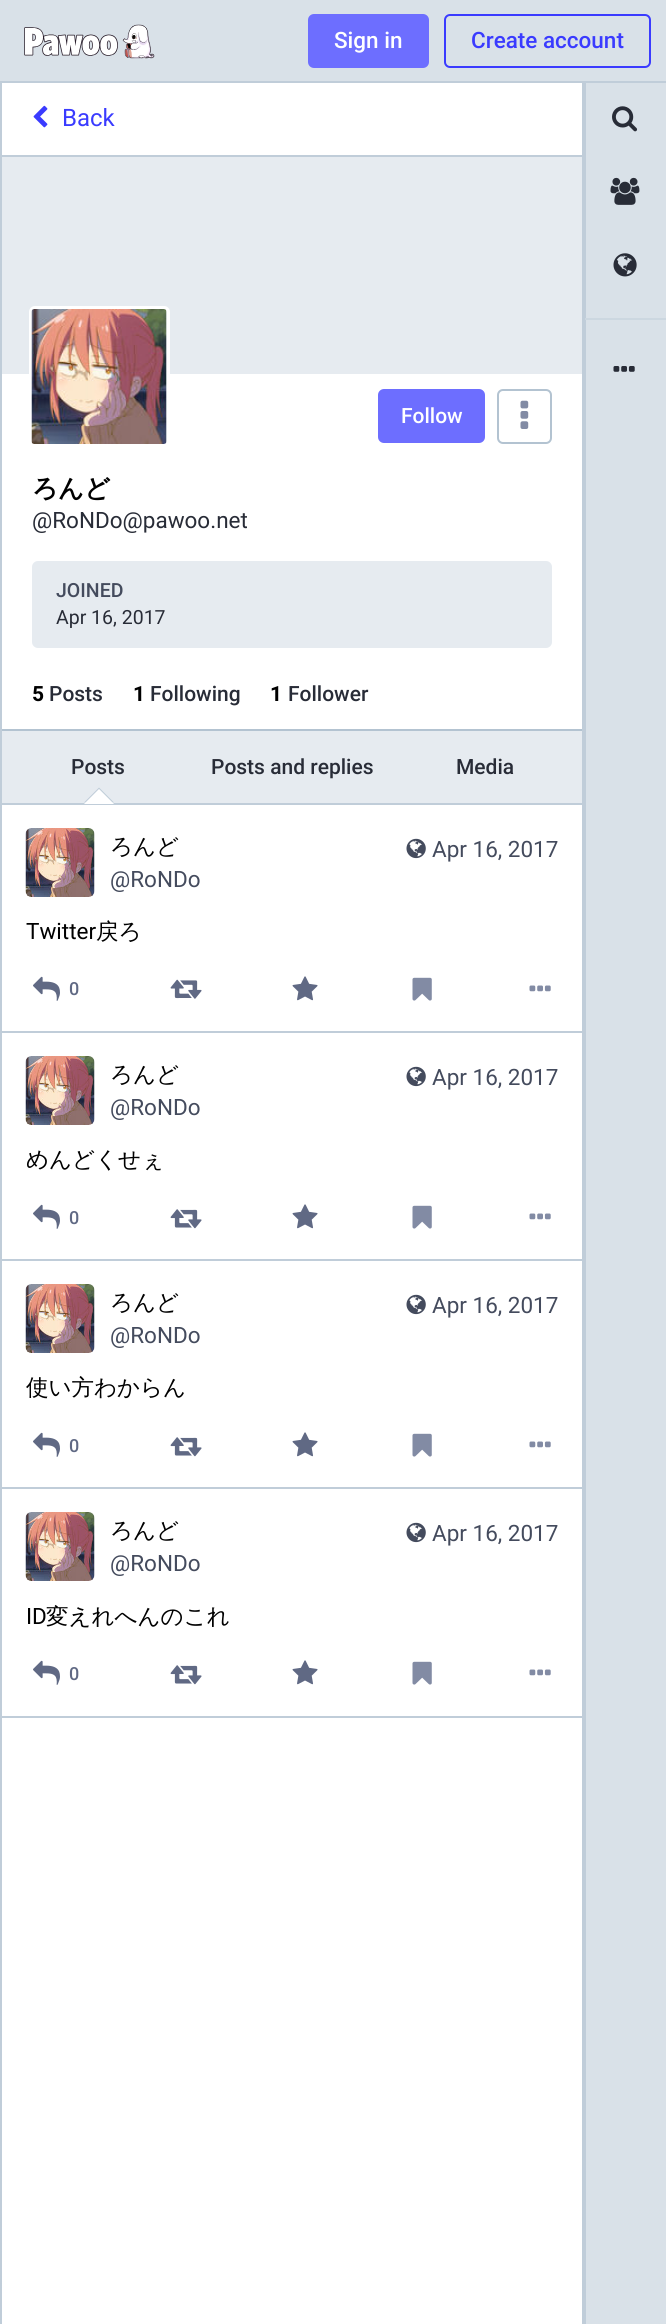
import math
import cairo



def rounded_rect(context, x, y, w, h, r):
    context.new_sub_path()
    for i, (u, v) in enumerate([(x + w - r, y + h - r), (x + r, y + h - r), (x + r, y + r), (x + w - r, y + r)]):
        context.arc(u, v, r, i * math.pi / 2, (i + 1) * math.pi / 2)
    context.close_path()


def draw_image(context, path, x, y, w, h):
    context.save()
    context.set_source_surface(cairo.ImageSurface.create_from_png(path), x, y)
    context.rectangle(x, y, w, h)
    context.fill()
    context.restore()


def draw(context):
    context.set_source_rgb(1, 1, 1)
    context.paint()
    context.set_source_rgb(217 / 255, 225 / 255, 232 / 255)
    context.rectangle(0, 0, 666, 81)
    context.fill()
    context.set_source_rgb(192 / 255, 205 / 255, 217 / 255)
    context.rectangle(0, 81, 666, 2)
    context.fill()
    draw_image(context, "images/1.png", 24, 24, 131, 35)
    context.set_source_rgb(109 / 255, 110 / 255, 1)
    rounded_rect(context, 308, 14, 121, 54, 6)
    context.fill()
    rounded_rect(context, 445, 15, 205, 52, 5)
    context.set_source_rgb(58 / 255, 59 / 255, 1)
    context.stroke()
    context.set_source_rgb(192 / 255, 205 / 255, 217 / 255)
    context.rectangle(582, 83, 2, 2241)
    context.fill()
    context.rectangle(0, 156, 2, 2168)
    context.fill()
    context.rectangle(0, 155, 584, 2)
    context.fill()
    context.rectangle(0, 83, 2, 73)
    context.fill()
    draw_image(context, "images/2.png", 33, 105, 15, 23)
    context.set_source_rgb(230 / 255, 235 / 255, 240 / 255)
    context.rectangle(2, 157, 580, 217)
    context.fill()
    context.set_source_rgb(179 / 255, 195 / 255, 209 / 255)
    context.rectangle(2, 729, 580, 2)
    context.fill()
    context.set_source_rgb(242 / 255, 245 / 255, 247 / 255)
    rounded_rect(context, 30.5, 307.5, 138, 138, 4.5)
    context.fill_preserve()
    context.set_source_rgb(1, 1, 1)
    context.set_line_width(3)
    context.stroke()
    draw_image(context, "images/3.png", 31, 309, 136, 135)
    context.set_source_rgb(109 / 255, 110 / 255, 1)
    rounded_rect(context, 378, 389, 107, 54, 6)
    context.fill()
    rounded_rect(context, 498, 390, 53, 53, 5)
    context.set_source_rgb(179 / 255, 195 / 255, 209 / 255)
    context.set_line_width(2)
    context.stroke()
    draw_image(context, "images/4.png", 520, 400, 9, 29)
    context.set_source_rgb(230 / 255, 235 / 255, 240 / 255)
    rounded_rect(context, 32, 561, 520, 87, 6)
    context.fill()
    context.rectangle(2, 731, 580, 72)
    context.fill()
    context.set_source_rgb(192 / 255, 205 / 255, 217 / 255)
    context.rectangle(2, 803, 580, 2)
    context.fill()
    context.new_path()
    context.move_to(114, 802.5)
    context.line_to(84, 802.5)
    context.line_to(99, 787.5)
    context.close_path()
    context.fill()
    context.set_source_rgb(1, 1, 1)
    context.new_path()
    context.move_to(114, 804)
    context.line_to(84, 804)
    context.line_to(99, 789)
    context.close_path()
    context.fill()
    context.set_source_rgb(192 / 255, 205 / 255, 217 / 255)
    context.rectangle(2, 1031, 580, 2)
    context.fill()
    draw_image(context, "images/5.png", 25, 828, 70, 69)
    draw_image(context, "images/6.png", 406, 838, 20, 21)
    draw_image(context, "images/7.png", 33, 976, 27, 25)
    draw_image(context, "images/8.png", 170, 979, 32, 20)
    draw_image(context, "images/9.png", 292, 976, 26, 25)
    draw_image(context, "images/10.png", 412, 977, 20, 24)
    draw_image(context, "images/11.png", 529, 985, 22, 7)
    context.rectangle(2, 1259, 580, 2)
    context.fill()
    draw_image(context, "images/12.png", 25, 1056, 70, 69)
    draw_image(context, "images/6.png", 406, 1066, 20, 21)
    draw_image(context, "images/7.png", 33, 1204, 27, 25)
    draw_image(context, "images/13.png", 170, 1209, 32, 20)
    draw_image(context, "images/9.png", 292, 1204, 26, 25)
    draw_image(context, "images/10.png", 412, 1205, 20, 24)
    draw_image(context, "images/11.png", 529, 1213, 22, 7)
    context.rectangle(2, 1487, 580, 2)
    context.fill()
    draw_image(context, "images/12.png", 25, 1284, 70, 69)
    draw_image(context, "images/6.png", 406, 1294, 20, 21)
    draw_image(context, "images/7.png", 33, 1432, 27, 25)
    draw_image(context, "images/13.png", 170, 1437, 32, 20)
    draw_image(context, "images/9.png", 292, 1432, 26, 25)
    draw_image(context, "images/10.png", 412, 1433, 20, 24)
    draw_image(context, "images/11.png", 529, 1441, 22, 7)
    context.rectangle(2, 1716, 580, 2)
    context.fill()
    draw_image(context, "images/12.png", 25, 1512, 70, 69)
    draw_image(context, "images/6.png", 406, 1522, 20, 21)
    draw_image(context, "images/7.png", 33, 1660, 27, 25)
    draw_image(context, "images/13.png", 170, 1665, 32, 20)
    draw_image(context, "images/9.png", 292, 1660, 26, 25)
    draw_image(context, "images/10.png", 412, 1661, 20, 24)
    draw_image(context, "images/11.png", 529, 1669, 22, 7)
    context.set_source_rgb(217 / 255, 225 / 255, 232 / 255)
    context.rectangle(586, 83, 80, 2241)
    context.fill()
    context.set_source_rgb(192 / 255, 205 / 255, 217 / 255)
    context.rectangle(584, 83, 2, 2241)
    context.fill()
    draw_image(context, "images/14.png", 612, 106, 26, 26)
    draw_image(context, "images/15.png", 610, 177, 30, 28)
    draw_image(context, "images/16.png", 613, 253, 24, 24)
    context.set_source_rgb(204 / 255, 215 / 255, 224 / 255)
    context.rectangle(585, 318, 81, 2)
    context.fill()
    draw_image(context, "images/17.png", 613, 366, 22, 6)
    context.select_font_face("Roboto Medium")
    context.set_font_size(22.5)
    context.set_source_rgb(1, 1, 1)
    context.move_to(334, 48)
    context.show_text("Sign in")
    context.set_source_rgb(58 / 255, 59 / 255, 1)
    context.move_to(471, 48)
    context.show_text("Create account")
    context.select_font_face("Roboto")
    context.set_font_size(24)
    context.move_to(62, 126)
    context.show_text("Back")
    context.select_font_face("Roboto Medium")
    context.set_font_size(21)
    context.set_source_rgb(1, 1, 1)
    context.move_to(401, 423)
    context.show_text("Follow")
    context.select_font_face("WenQuanYi Zen Hei", cairo.FontSlant.NORMAL, cairo.FontWeight.BOLD)
    context.set_font_size(25.5)
    context.set_source_rgb(0, 0, 0)
    context.move_to(32, 497)
    context.show_text("ろんど")
    context.select_font_face("Roboto")
    context.set_font_size(22.5)
    context.set_source_rgb(40 / 255, 44 / 255, 55 / 255)
    context.move_to(32, 528)
    context.show_text("@RoNDo@pawoo.net")
    context.select_font_face("Roboto Medium")
    context.set_font_size(19.5)
    context.set_source_rgb(68 / 255, 75 / 255, 93 / 255)
    context.move_to(56, 597)
    context.show_text("JOINED")
    context.select_font_face("Roboto")
    context.set_source_rgb(40 / 255, 44 / 255, 55 / 255)
    context.move_to(56, 624)
    context.show_text("Apr 16, 2017")
    context.select_font_face("Roboto", cairo.FontSlant.NORMAL, cairo.FontWeight.BOLD)
    context.set_font_size(21)
    context.set_source_rgb(0, 0, 0)
    context.move_to(32, 701)
    context.show_text("5")
    context.select_font_face("Roboto Medium")
    context.set_source_rgb(40 / 255, 44 / 255, 55 / 255)
    context.move_to(49, 701)
    context.show_text("Posts")
    context.select_font_face("Roboto", cairo.FontSlant.NORMAL, cairo.FontWeight.BOLD)
    context.set_source_rgb(0, 0, 0)
    context.move_to(133, 701)
    context.show_text("1")
    context.select_font_face("Roboto Medium")
    context.set_source_rgb(40 / 255, 44 / 255, 55 / 255)
    context.move_to(150, 701)
    context.show_text("Following")
    context.select_font_face("Roboto", cairo.FontSlant.NORMAL, cairo.FontWeight.BOLD)
    context.set_source_rgb(0, 0, 0)
    context.move_to(270, 701)
    context.show_text("1")
    context.select_font_face("Roboto Medium")
    context.set_source_rgb(40 / 255, 44 / 255, 55 / 255)
    context.move_to(288, 701)
    context.show_text("Follower")
    context.move_to(71, 774)
    context.show_text("Posts")
    context.move_to(211, 774)
    context.show_text("Posts and replies")
    context.move_to(456, 774)
    context.show_text("Media")
    context.select_font_face("WenQuanYi Zen Hei Medium")
    context.set_font_size(22.5)
    context.set_source_rgb(0, 0, 0)
    context.move_to(110, 854)
    context.show_text("ろんど")
    context.select_font_face("Roboto")
    context.set_source_rgb(68 / 255, 75 / 255, 93 / 255)
    context.move_to(110, 887)
    context.show_text("@RoNDo")
    context.move_to(432, 857)
    context.show_text("Apr 16, 2017")
    context.set_source_rgb(0, 0, 0)
    context.move_to(26, 939)
    context.show_text("Twitter")
    context.select_font_face("WenQuanYi Zen Hei Medium")
    context.move_to(96, 939)
    context.show_text("戻ろ")
    context.select_font_face("Roboto Medium")
    context.set_font_size(18)
    context.set_source_rgb(96 / 255, 105 / 255, 132 / 255)
    context.move_to(69, 995)
    context.show_text("0")
    context.select_font_face("WenQuanYi Zen Hei Medium")
    context.set_font_size(22.5)
    context.set_source_rgb(0, 0, 0)
    context.move_to(110, 1082)
    context.show_text("ろんど")
    context.select_font_face("Roboto")
    context.set_source_rgb(68 / 255, 75 / 255, 93 / 255)
    context.move_to(110, 1115)
    context.show_text("@RoNDo")
    context.move_to(432, 1085)
    context.show_text("Apr 16, 2017")
    context.select_font_face("WenQuanYi Zen Hei Medium")
    context.set_source_rgb(0, 0, 0)
    context.move_to(26, 1167)
    context.show_text("めんどくせぇ")
    context.select_font_face("Roboto Medium")
    context.set_font_size(18)
    context.set_source_rgb(96 / 255, 105 / 255, 132 / 255)
    context.move_to(69, 1224)
    context.show_text("0")
    context.select_font_face("WenQuanYi Zen Hei Medium")
    context.set_font_size(22.5)
    context.set_source_rgb(0, 0, 0)
    context.move_to(110, 1310)
    context.show_text("ろんど")
    context.select_font_face("Roboto")
    context.set_source_rgb(68 / 255, 75 / 255, 93 / 255)
    context.move_to(110, 1343)
    context.show_text("@RoNDo")
    context.move_to(432, 1313)
    context.show_text("Apr 16, 2017")
    context.select_font_face("WenQuanYi Zen Hei Medium")
    context.set_source_rgb(0, 0, 0)
    context.move_to(26, 1395)
    context.show_text("使い方わからん")
    context.select_font_face("Roboto Medium")
    context.set_font_size(18)
    context.set_source_rgb(96 / 255, 105 / 255, 132 / 255)
    context.move_to(69, 1452)
    context.show_text("0")
    context.select_font_face("WenQuanYi Zen Hei Medium")
    context.set_font_size(22.5)
    context.set_source_rgb(0, 0, 0)
    context.move_to(110, 1538)
    context.show_text("ろんど")
    context.select_font_face("Roboto")
    context.set_source_rgb(68 / 255, 75 / 255, 93 / 255)
    context.move_to(110, 1571)
    context.show_text("@RoNDo")
    context.move_to(432, 1541)
    context.show_text("Apr 16, 2017")
    context.set_source_rgb(0, 0, 0)
    context.move_to(26, 1624)
    context.show_text("ID")
    context.select_font_face("WenQuanYi Zen Hei Medium")
    context.move_to(46, 1624)
    context.show_text("変えれへんのこれ")
    context.select_font_face("Roboto Medium")
    context.set_font_size(18)
    context.set_source_rgb(96 / 255, 105 / 255, 132 / 255)
    context.move_to(69, 1680)
    context.show_text("0")


surface = cairo.ImageSurface(cairo.Format.RGB24, 666, 2324)
context = cairo.Context(surface)
options = cairo.FontOptions()
options.set_hint_metrics(cairo.HintMetrics.OFF)
options.set_hint_style(cairo.HintStyle.NONE)
context.set_font_options(options)
context.set_miter_limit(4)
draw(context)
surface.write_to_png("out.png")
